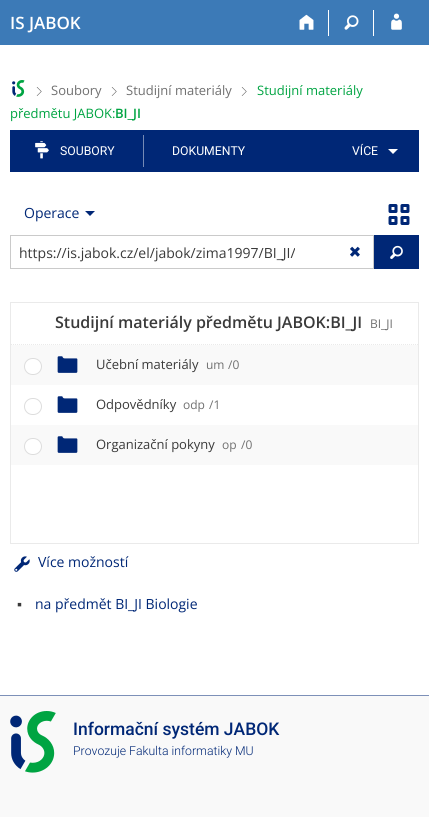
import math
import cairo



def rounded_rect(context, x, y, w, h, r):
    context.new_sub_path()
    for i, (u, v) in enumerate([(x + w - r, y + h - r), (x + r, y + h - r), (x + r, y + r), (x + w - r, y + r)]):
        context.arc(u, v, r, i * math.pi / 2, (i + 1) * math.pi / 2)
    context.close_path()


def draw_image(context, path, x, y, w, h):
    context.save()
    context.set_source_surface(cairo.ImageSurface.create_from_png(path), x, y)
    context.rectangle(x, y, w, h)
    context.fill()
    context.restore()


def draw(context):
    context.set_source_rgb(1, 1, 1)
    context.paint()
    context.set_source_rgb(60 / 255, 122 / 255, 183 / 255)
    context.rectangle(0, 0, 429, 45)
    context.fill()
    context.set_source_rgb(1, 1, 1)
    context.rectangle(328, 10, 1, 26)
    context.fill()
    draw_image(context, "images/1.png", 299, 14, 15, 16)
    context.rectangle(373, 10, 1, 26)
    context.fill()
    draw_image(context, "images/2.png", 344, 15, 15, 15)
    draw_image(context, "images/3.png", 391, 13, 11, 17)
    draw_image(context, "images/4.png", 12, 80, 13, 17)
    draw_image(context, "images/5.png", 36, 87, 6, 9)
    draw_image(context, "images/5.png", 111, 87, 6, 9)
    draw_image(context, "images/5.png", 241, 87, 6, 9)
    context.set_source_rgb(0, 39 / 255, 118 / 255)
    context.rectangle(10, 130, 409, 42)
    context.fill()
    draw_image(context, "images/6.png", 35, 141, 14, 18)
    context.set_source_rgb(117 / 255, 138 / 255, 181 / 255)
    context.rectangle(143, 135, 1, 32)
    context.fill()
    context.set_source_rgb(1, 1, 1)
    context.new_path()
    context.move_to(388, 149)
    context.line_to(398, 149)
    context.line_to(393, 154)
    context.close_path()
    context.fill()
    context.set_source_rgb(0, 39 / 255, 118 / 255)
    context.new_path()
    context.move_to(85, 211)
    context.line_to(95, 211)
    context.line_to(90, 216)
    context.close_path()
    context.fill()
    draw_image(context, "images/7.png", 388, 204, 22, 21)
    context.rectangle(10.5, 235.5, 363, 33)
    context.set_source_rgb(202 / 255, 202 / 255, 202 / 255)
    context.set_line_width(1)
    context.stroke()
    draw_image(context, "images/8.png", 350, 246, 10, 11)
    context.set_source_rgb(0, 39 / 255, 118 / 255)
    context.rectangle(374, 235, 45, 34)
    context.fill()
    draw_image(context, "images/9.png", 390, 245, 13, 14)
    context.rectangle(10.5, 302.5, 408, 241)
    context.set_source_rgb(234 / 255, 234 / 255, 234 / 255)
    context.stroke()
    context.new_path()
    context.move_to(11, 344.5)
    context.line_to(418, 344.5)
    context.set_dash([1, 1])
    context.stroke()
    context.set_source_rgb(249 / 255, 249 / 255, 249 / 255)
    context.rectangle(11, 345, 407, 40)
    context.fill()
    context.set_source_rgb(1, 1, 1)
    rounded_rect(context, 24.5, 358.5, 17, 16, 8)
    context.fill_preserve()
    context.set_source_rgb(221 / 255, 221 / 255, 221 / 255)
    context.set_dash([])
    context.stroke()
    draw_image(context, "images/10.png", 57, 356, 21, 17)
    rounded_rect(context, 24.5, 398.5, 17, 16, 8)
    context.stroke()
    draw_image(context, "images/11.png", 57, 396, 21, 17)
    context.set_source_rgb(249 / 255, 249 / 255, 249 / 255)
    context.rectangle(11, 425, 407, 40)
    context.fill()
    context.set_source_rgb(1, 1, 1)
    rounded_rect(context, 24.5, 438.5, 17, 16, 8)
    context.fill_preserve()
    context.set_source_rgb(221 / 255, 221 / 255, 221 / 255)
    context.stroke()
    draw_image(context, "images/10.png", 57, 436, 21, 17)
    draw_image(context, "images/12.png", 14, 556, 16, 16)
    context.set_source_rgb(249 / 255, 249 / 255, 249 / 255)
    context.rectangle(0, 696, 429, 121)
    context.fill()
    context.set_source_rgb(125 / 255, 144 / 255, 184 / 255)
    context.rectangle(0, 695, 429, 1)
    context.fill()
    draw_image(context, "images/13.png", 10, 711, 46, 62)
    context.select_font_face("Open Sans SemiBold")
    context.set_font_size(17)
    context.set_source_rgb(1, 1, 1)
    context.move_to(10, 29)
    context.show_text("IS JABOK")
    context.select_font_face("Open Sans")
    context.set_font_size(13)
    context.set_source_rgb(112 / 255, 112 / 255, 112 / 255)
    context.move_to(51, 95)
    context.show_text("Soubory")
    context.move_to(126, 95)
    context.show_text("Studijní materiály")
    context.set_source_rgb(0, 164 / 255, 66 / 255)
    context.move_to(257, 95)
    context.show_text("Studijní materiály")
    context.move_to(10, 118)
    context.show_text("předmětu JABOK:")
    context.select_font_face("Open Sans SemiBold")
    context.move_to(115, 118)
    context.show_text("BI_JI")
    context.select_font_face("Roboto")
    context.set_font_size(12.25)
    context.set_source_rgb(1, 1, 1)
    context.move_to(60, 155)
    context.show_text("SOUBORY")
    context.move_to(172, 155)
    context.show_text("DOKUMENTY")
    context.move_to(352, 155)
    context.show_text("VÍCE")
    context.select_font_face("Open Sans")
    context.set_font_size(14)
    context.set_source_rgb(0, 39 / 255, 118 / 255)
    context.move_to(24, 218)
    context.show_text("Operace")
    context.set_source_rgb(58 / 255, 58 / 255, 58 / 255)
    context.move_to(19, 258)
    context.show_text("https://is.jabok.cz/el/jabok/zima1997/BI_JI/")
    context.select_font_face("Open Sans SemiBold")
    context.set_font_size(16)
    context.move_to(55, 328)
    context.show_text("Studijní materiály předmětu JABOK:BI_JI")
    context.select_font_face("Open Sans")
    context.set_font_size(12)
    context.set_source_rgb(112 / 255, 112 / 255, 112 / 255)
    context.move_to(370, 328)
    context.show_text("BI_JI")
    context.set_font_size(13)
    context.set_source_rgb(58 / 255, 58 / 255, 58 / 255)
    context.move_to(96, 369)
    context.show_text("Učební materiály")
    context.set_font_size(12)
    context.set_source_rgb(112 / 255, 112 / 255, 112 / 255)
    context.move_to(206, 369)
    context.show_text("um")
    context.move_to(228, 369)
    context.show_text("/0")
    context.set_font_size(13)
    context.set_source_rgb(58 / 255, 58 / 255, 58 / 255)
    context.move_to(96, 409)
    context.show_text("Odpovědníky")
    context.set_font_size(12)
    context.set_source_rgb(112 / 255, 112 / 255, 112 / 255)
    context.move_to(183, 409)
    context.show_text("odp")
    context.move_to(209, 409)
    context.show_text("/1")
    context.set_font_size(13)
    context.set_source_rgb(58 / 255, 58 / 255, 58 / 255)
    context.move_to(96, 449)
    context.show_text("Organizační pokyny")
    context.set_font_size(12)
    context.set_source_rgb(112 / 255, 112 / 255, 112 / 255)
    context.move_to(222, 449)
    context.show_text("op")
    context.move_to(241, 449)
    context.show_text("/0")
    context.set_font_size(14)
    context.set_source_rgb(0, 39 / 255, 118 / 255)
    context.move_to(38, 567)
    context.show_text("Více možností")
    context.select_font_face("Liberation Sans")
    context.set_source_rgb(58 / 255, 58 / 255, 58 / 255)
    context.move_to(17, 609)
    context.show_text("▪")
    context.select_font_face("Open Sans")
    context.set_source_rgb(0, 39 / 255, 118 / 255)
    context.move_to(35, 609)
    context.show_text("na předmět BI_JI Biologie")
    context.select_font_face("Roboto Medium")
    context.set_font_size(17.5)
    context.move_to(73, 735)
    context.show_text("Informační systém JABOK")
    context.select_font_face("Roboto Light")
    context.set_font_size(12.25)
    context.move_to(73, 755)
    context.show_text("Provozuje Fakulta informatiky MU")


surface = cairo.ImageSurface(cairo.Format.RGB24, 429, 817)
context = cairo.Context(surface)
options = cairo.FontOptions()
options.set_hint_metrics(cairo.HintMetrics.OFF)
options.set_hint_style(cairo.HintStyle.NONE)
context.set_font_options(options)
context.set_miter_limit(4)
draw(context)
surface.write_to_png("out.png")
